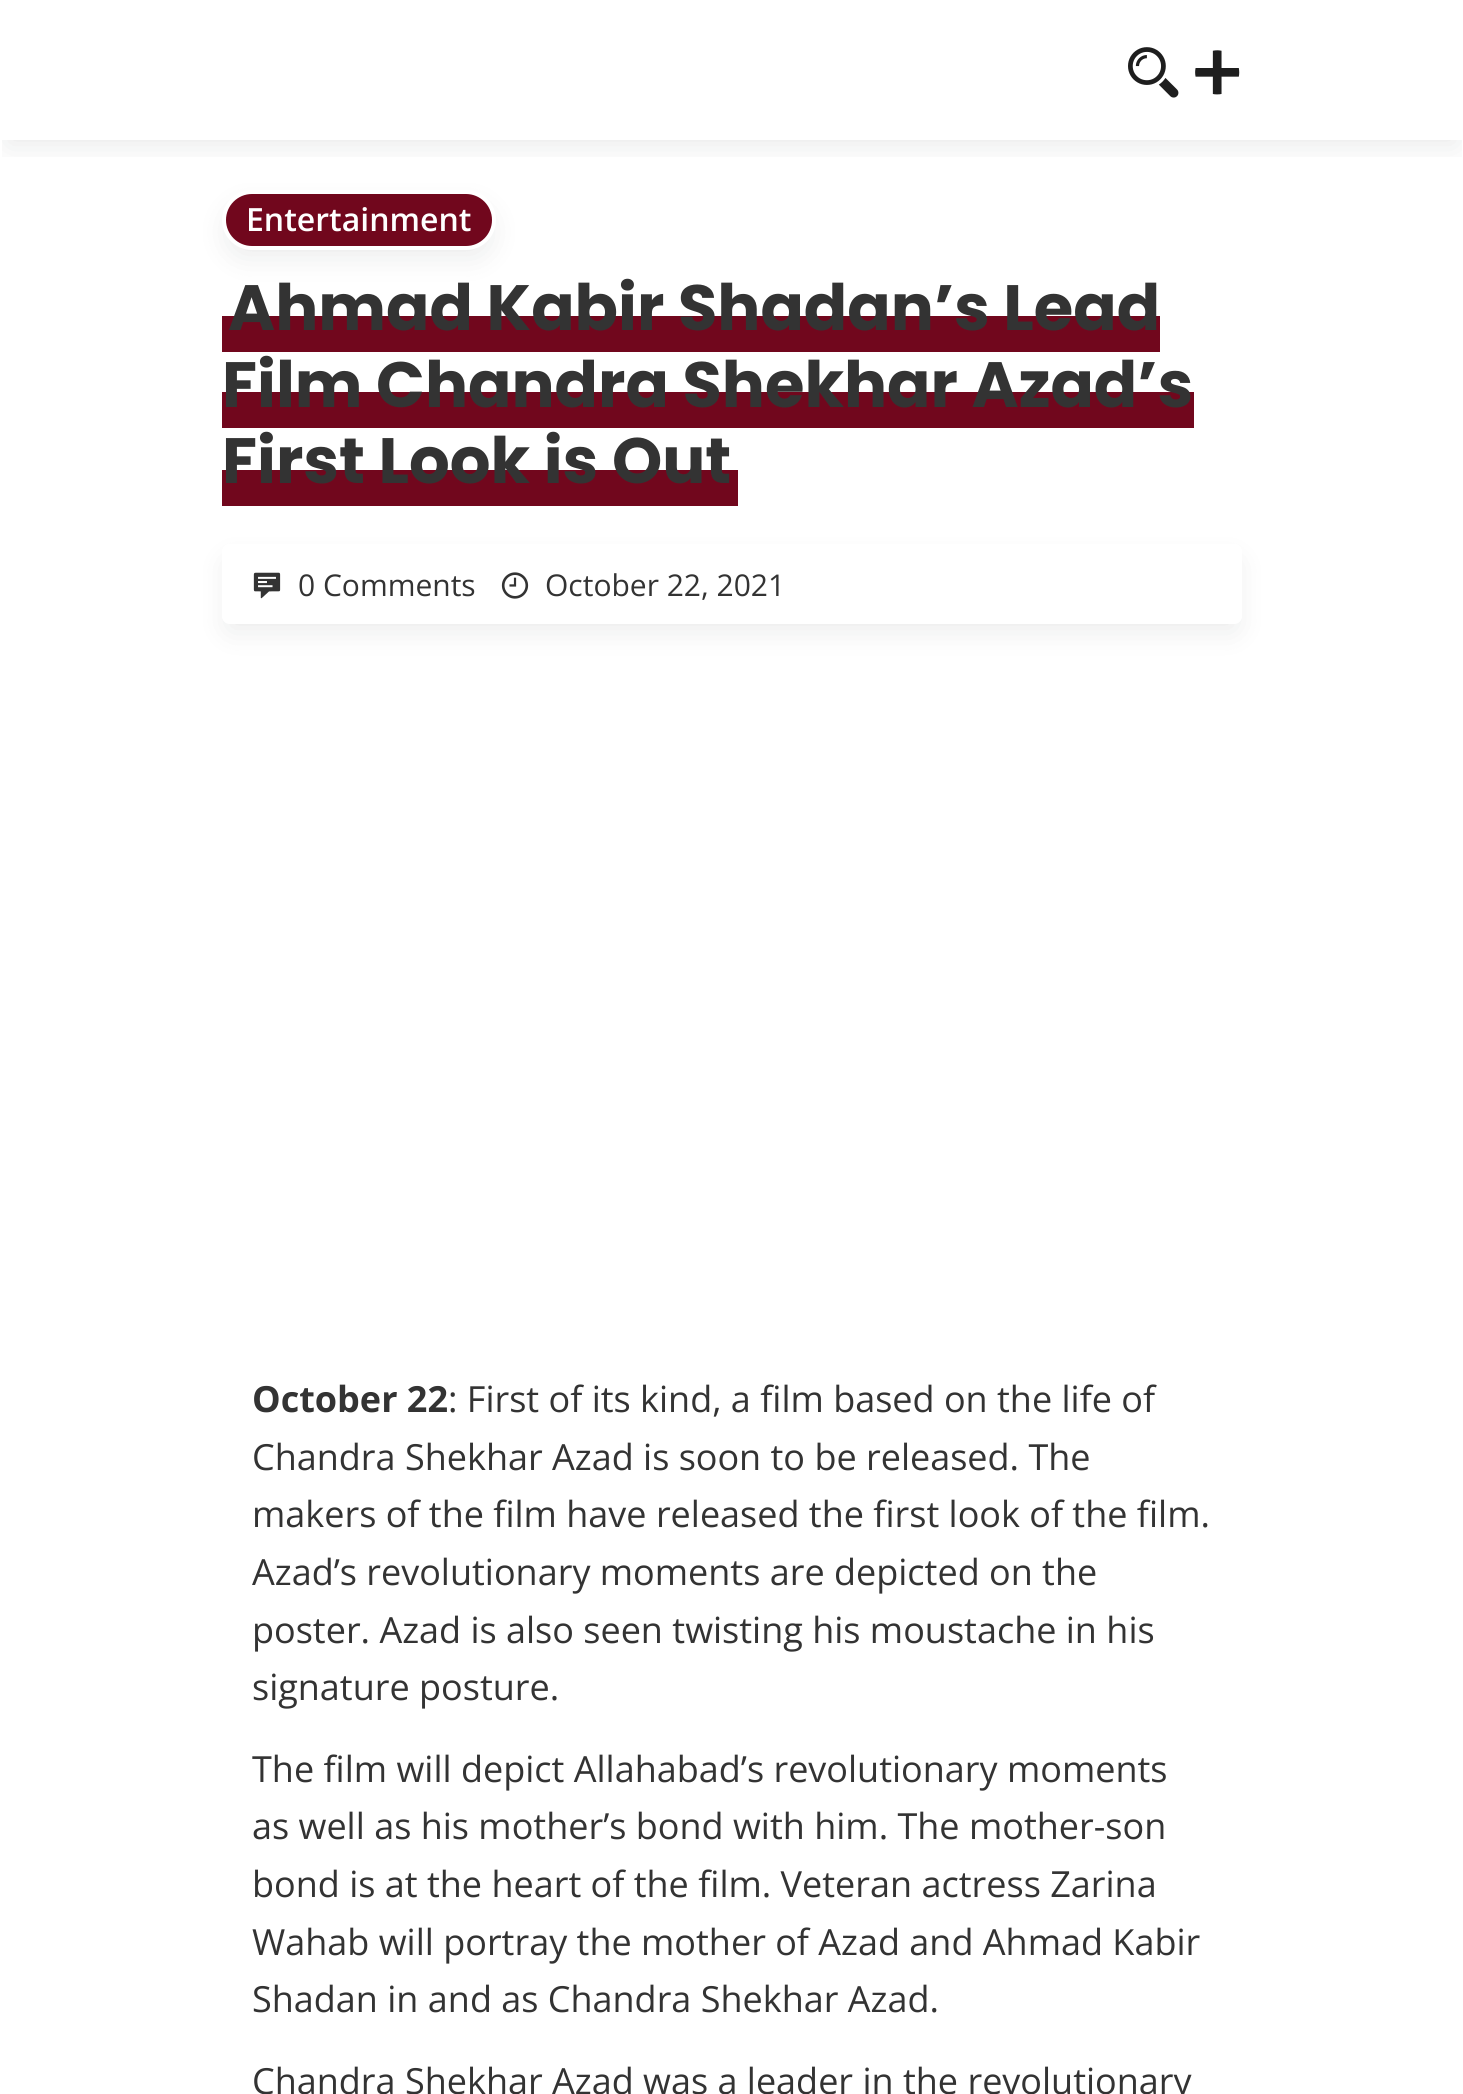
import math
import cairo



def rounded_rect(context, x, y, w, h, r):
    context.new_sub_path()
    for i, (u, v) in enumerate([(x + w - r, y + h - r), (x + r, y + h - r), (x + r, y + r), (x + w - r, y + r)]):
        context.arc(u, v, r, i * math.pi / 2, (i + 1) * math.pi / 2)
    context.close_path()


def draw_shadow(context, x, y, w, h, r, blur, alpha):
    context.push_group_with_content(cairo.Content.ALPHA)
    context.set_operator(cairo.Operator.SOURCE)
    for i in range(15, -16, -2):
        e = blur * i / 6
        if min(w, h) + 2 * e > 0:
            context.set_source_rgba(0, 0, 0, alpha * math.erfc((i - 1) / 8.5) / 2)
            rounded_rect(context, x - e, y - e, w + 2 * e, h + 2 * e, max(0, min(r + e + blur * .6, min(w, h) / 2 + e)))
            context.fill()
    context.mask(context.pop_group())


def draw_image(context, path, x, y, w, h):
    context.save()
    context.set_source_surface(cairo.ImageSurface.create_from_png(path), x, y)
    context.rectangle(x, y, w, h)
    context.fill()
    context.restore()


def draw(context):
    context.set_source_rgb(1, 1, 1)
    context.paint()
    context.save()
    context.rectangle(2, 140, 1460, 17)
    context.clip()
    context.set_source_rgb(14 / 255, 17 / 255, 20 / 255)
    draw_shadow(context, 8, 20, 1448, 124, 0, 15, 0.1)
    context.restore()
    draw_image(context, "images/1.png", 1128, 47, 51, 51)
    draw_image(context, "images/2.png", 1195, 50, 45, 45)
    context.set_source_rgb(14 / 255, 17 / 255, 20 / 255)
    draw_shadow(context, 230, 210, 258, 44, 22, 15, 0.1)
    context.set_source_rgb(113 / 255, 7 / 255, 29 / 255)
    rounded_rect(context, 224, 192, 270, 56, 28)
    context.fill_preserve()
    context.set_source_rgb(1, 1, 1)
    context.set_line_width(4)
    context.stroke()
    context.set_source_rgb(113 / 255, 7 / 255, 29 / 255)
    context.rectangle(222, 316, 938, 36)
    context.fill()
    context.rectangle(222, 392, 972, 36)
    context.fill()
    context.rectangle(222, 470, 516, 36)
    context.fill()
    context.save()
    context.set_fill_rule(cairo.FillRule.EVEN_ODD)
    context.new_path()
    context.move_to(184, 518)
    context.line_to(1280, 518)
    context.line_to(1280, 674)
    context.line_to(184, 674)
    context.close_path()
    context.move_to(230, 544)
    context.line_to(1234, 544)
    context.curve_to(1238.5, 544, 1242, 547.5, 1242, 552)
    context.line_to(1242, 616)
    context.curve_to(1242, 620.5, 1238.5, 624, 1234, 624)
    context.line_to(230, 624)
    context.curve_to(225.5, 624, 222, 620.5, 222, 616)
    context.line_to(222, 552)
    context.curve_to(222, 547.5, 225.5, 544, 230, 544)
    context.close_path()
    context.clip()
    context.set_source_rgb(14 / 255, 17 / 255, 20 / 255)
    draw_shadow(context, 230, 564, 1004, 64, 0, 15, 0.1)
    context.restore()
    draw_image(context, "images/3.png", 253, 572, 28, 27)
    draw_image(context, "images/4.png", 501, 572, 28, 27)
    context.select_font_face("Open Sans SemiBold")
    context.set_font_size(32)
    context.set_source_rgb(1, 1, 1)
    context.move_to(246, 231)
    context.show_text("Entertainment")
    context.select_font_face("Poppins", cairo.FontSlant.NORMAL, cairo.FontWeight.BOLD)
    context.set_font_size(64)
    context.set_source_rgb(51 / 255, 51 / 255, 51 / 255)
    context.move_to(228, 330)
    context.show_text("Ahmad Kabir Shadan’s Lead")
    context.move_to(222, 407)
    context.show_text("Film Chandra Shekhar Azad’s")
    context.move_to(222, 483)
    context.show_text("First Look is Out")
    context.select_font_face("Open Sans")
    context.set_font_size(30)
    context.move_to(298, 596)
    context.show_text("0 Comments")
    context.move_to(545, 596)
    context.show_text("October 22, 2021")
    context.select_font_face("Open Sans", cairo.FontSlant.NORMAL, cairo.FontWeight.BOLD)
    context.set_font_size(36)
    context.move_to(252, 1412)
    context.show_text("October 22")
    context.select_font_face("Open Sans")
    context.move_to(448, 1412)
    context.show_text(": First of its kind, a film based on the life of")
    context.move_to(252, 1470)
    context.show_text("Chandra Shekhar Azad is soon to be released. The")
    context.move_to(252, 1527)
    context.show_text("makers of the film have released the first look of the film.")
    context.move_to(252, 1585)
    context.show_text("Azad’s revolutionary moments are depicted on the")
    context.move_to(252, 1643)
    context.show_text("poster. Azad is also seen twisting his moustache in his")
    context.move_to(252, 1700)
    context.show_text("signature posture.")
    context.move_to(252, 1782)
    context.show_text("The film will depict Allahabad’s revolutionary moments")
    context.move_to(252, 1839)
    context.show_text("as well as his mother’s bond with him. The mother-son")
    context.move_to(252, 1897)
    context.show_text("bond is at the heart of the film. Veteran actress Zarina")
    context.move_to(252, 1955)
    context.show_text("Wahab will portray the mother of Azad and Ahmad Kabir")
    context.move_to(252, 2012)
    context.show_text("Shadan in and as Chandra Shekhar Azad.")
    context.move_to(252, 2094)
    context.show_text("Chandra Shekhar Azad was a leader in the revolutionary")


surface = cairo.ImageSurface(cairo.Format.RGB24, 1463, 2094)
context = cairo.Context(surface)
options = cairo.FontOptions()
options.set_hint_metrics(cairo.HintMetrics.OFF)
options.set_hint_style(cairo.HintStyle.NONE)
context.set_font_options(options)
context.set_miter_limit(4)
draw(context)
surface.write_to_png("out.png")
